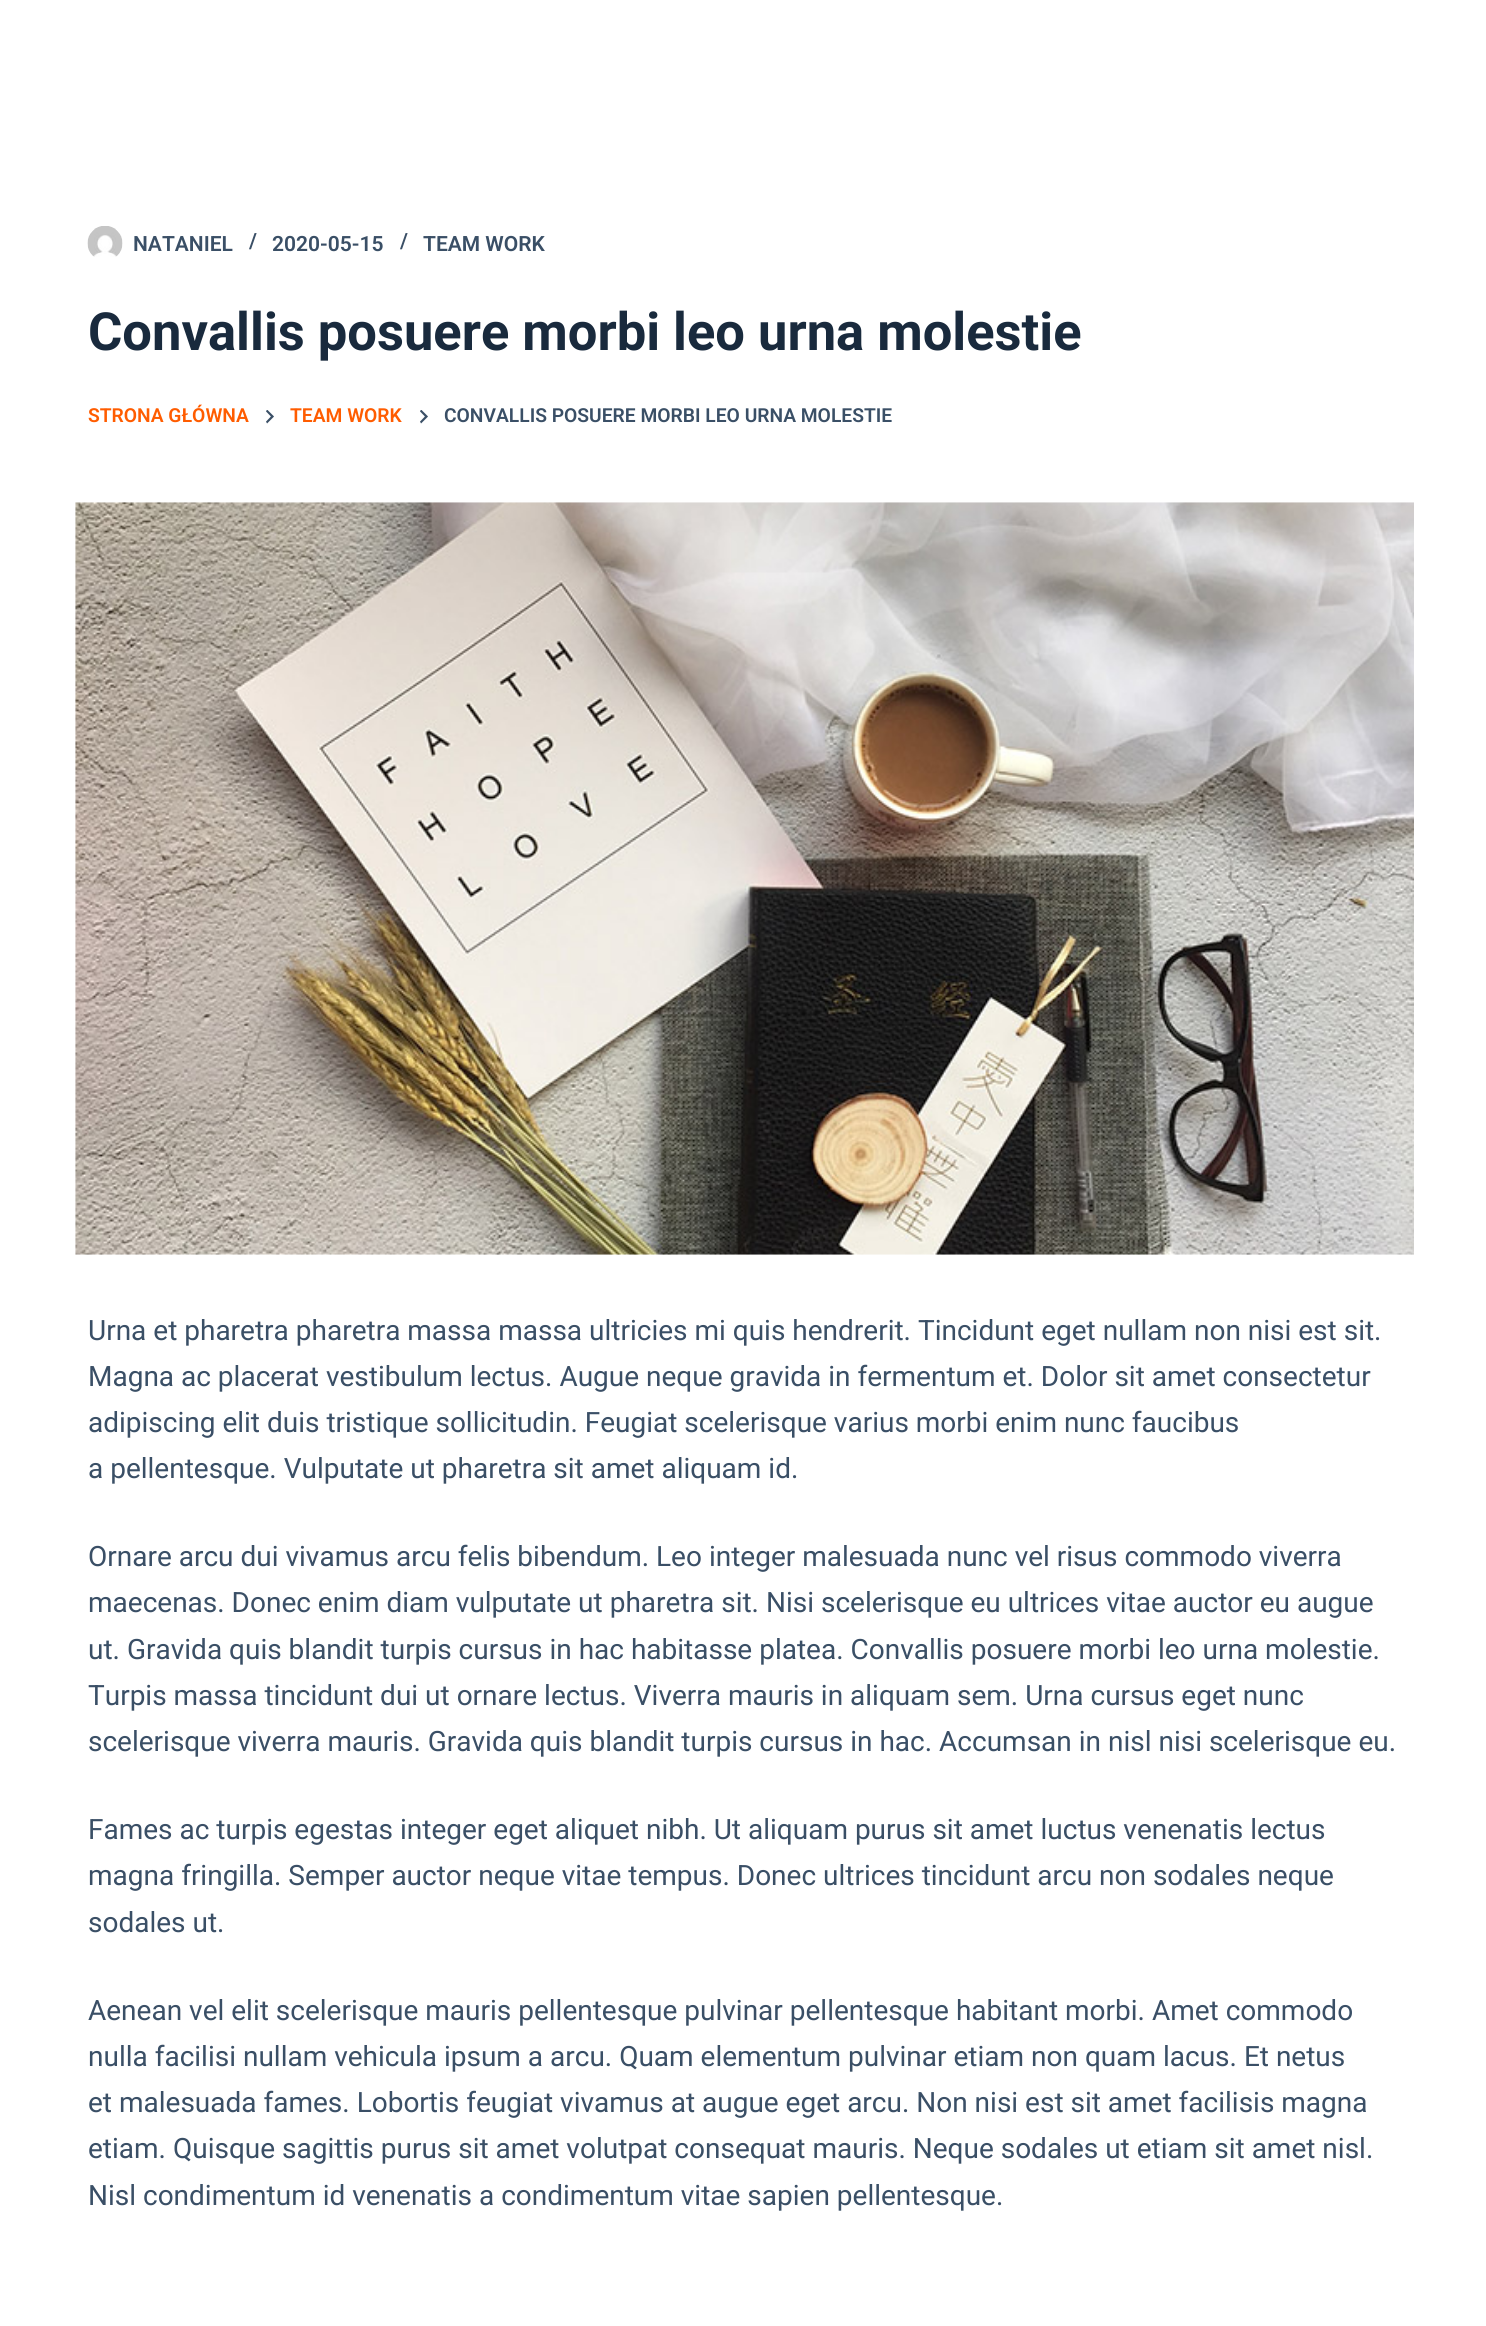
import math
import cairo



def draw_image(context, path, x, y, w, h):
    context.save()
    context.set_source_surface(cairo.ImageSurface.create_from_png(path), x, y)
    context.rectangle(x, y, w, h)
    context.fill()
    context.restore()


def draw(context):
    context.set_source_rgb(1, 1, 1)
    context.paint()
    draw_image(context, "images/1.png", 87, 226, 36, 31)
    draw_image(context, "images/2.png", 266, 410, 8, 14)
    draw_image(context, "images/2.png", 420, 410, 8, 14)
    draw_image(context, "images/3.png", 75, 502, 1339, 753)
    context.select_font_face("Roboto SemiBold")
    context.set_font_size(21)
    context.set_source_rgb(58 / 255, 79 / 255, 102 / 255)
    context.move_to(133, 251)
    context.show_text("NATANIEL")
    context.move_to(249, 248)
    context.show_text("/")
    context.move_to(272, 251)
    context.show_text("2020-05-15")
    context.move_to(400, 248)
    context.show_text("/")
    context.move_to(423, 251)
    context.show_text("TEAM WORK")
    context.select_font_face("Roboto", cairo.FontSlant.NORMAL, cairo.FontWeight.BOLD)
    context.set_font_size(52.5)
    context.set_source_rgb(25 / 255, 42 / 255, 61 / 255)
    context.move_to(88, 350)
    context.show_text("Convallis posuere morbi leo urna molestie")
    context.select_font_face("Roboto SemiBold")
    context.set_font_size(19.25)
    context.set_source_rgb(1, 92 / 255, 0)
    context.move_to(88, 422)
    context.show_text("STRONA GŁÓWNA")
    context.move_to(290, 422)
    context.show_text("TEAM WORK")
    context.set_source_rgb(58 / 255, 79 / 255, 102 / 255)
    context.move_to(444, 422)
    context.show_text("CONVALLIS POSUERE MORBI LEO URNA MOLESTIE")
    context.select_font_face("Roboto")
    context.set_font_size(28)
    context.move_to(88, 1340)
    context.show_text("Urna et pharetra pharetra massa massa ultricies mi quis hendrerit. Tincidunt eget nullam non nisi est sit.")
    context.move_to(88, 1386)
    context.show_text("Magna ac placerat vestibulum lectus. Augue neque gravida in fermentum et. Dolor sit amet consectetur")
    context.move_to(88, 1432)
    context.show_text("adipiscing elit duis tristique sollicitudin. Feugiat scelerisque varius morbi enim nunc faucibus")
    context.move_to(88, 1478)
    context.show_text("a pellentesque. Vulputate ut pharetra sit amet aliquam id.")
    context.move_to(88, 1566)
    context.show_text("Ornare arcu dui vivamus arcu felis bibendum. Leo integer malesuada nunc vel risus commodo viverra")
    context.move_to(88, 1612)
    context.show_text("maecenas. Donec enim diam vulputate ut pharetra sit. Nisi scelerisque eu ultrices vitae auctor eu augue")
    context.move_to(88, 1659)
    context.show_text("ut. Gravida quis blandit turpis cursus in hac habitasse platea. Convallis posuere morbi leo urna molestie.")
    context.move_to(88, 1705)
    context.show_text("Turpis massa tincidunt dui ut ornare lectus. Viverra mauris in aliquam sem. Urna cursus eget nunc")
    context.move_to(88, 1751)
    context.show_text("scelerisque viverra mauris. Gravida quis blandit turpis cursus in hac. Accumsan in nisl nisi scelerisque eu.")
    context.move_to(88, 1839)
    context.show_text("Fames ac turpis egestas integer eget aliquet nibh. Ut aliquam purus sit amet luctus venenatis lectus")
    context.move_to(88, 1885)
    context.show_text("magna fringilla. Semper auctor neque vitae tempus. Donec ultrices tincidunt arcu non sodales neque")
    context.move_to(88, 1932)
    context.show_text("sodales ut.")
    context.move_to(88, 2020)
    context.show_text("Aenean vel elit scelerisque mauris pellentesque pulvinar pellentesque habitant morbi. Amet commodo")
    context.move_to(88, 2066)
    context.show_text("nulla facilisi nullam vehicula ipsum a arcu. Quam elementum pulvinar etiam non quam lacus. Et netus")
    context.move_to(88, 2112)
    context.show_text("et malesuada fames. Lobortis feugiat vivamus at augue eget arcu. Non nisi est sit amet facilisis magna")
    context.move_to(88, 2158)
    context.show_text("etiam. Quisque sagittis purus sit amet volutpat consequat mauris. Neque sodales ut etiam sit amet nisl.")
    context.move_to(88, 2205)
    context.show_text("Nisl condimentum id venenatis a condimentum vitae sapien pellentesque.")


surface = cairo.ImageSurface(cairo.Format.RGB24, 1486, 2326)
context = cairo.Context(surface)
options = cairo.FontOptions()
options.set_hint_metrics(cairo.HintMetrics.OFF)
options.set_hint_style(cairo.HintStyle.NONE)
context.set_font_options(options)
context.set_miter_limit(4)
draw(context)
surface.write_to_png("out.png")
